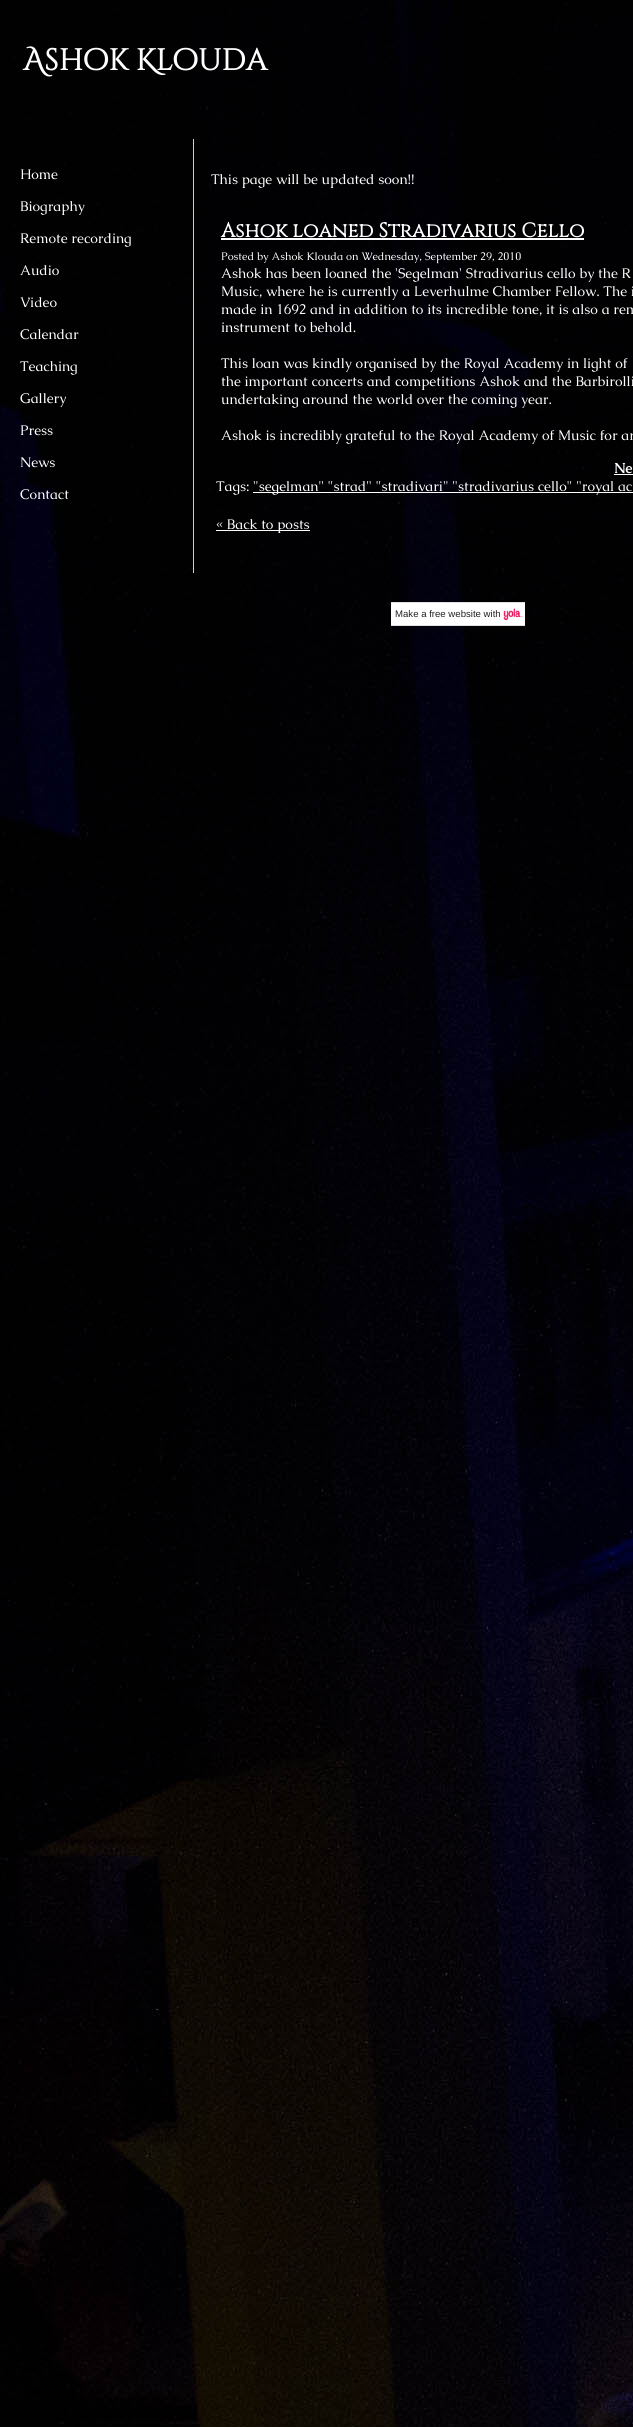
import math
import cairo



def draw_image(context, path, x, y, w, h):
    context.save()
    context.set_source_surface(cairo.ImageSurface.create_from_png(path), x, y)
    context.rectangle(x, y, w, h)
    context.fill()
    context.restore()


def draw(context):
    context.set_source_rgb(1, 1, 1)
    context.paint()
    draw_image(context, "images/1.png", 0, 0, 633, 2427)
    context.set_source_rgb(204 / 255, 204 / 255, 204 / 255)
    context.rectangle(193, 139, 1, 434)
    context.fill()
    context.set_source_rgb(1, 1, 1)
    context.rectangle(221, 238, 363, 2)
    context.fill()
    context.rectangle(614, 474, 19, 1)
    context.fill()
    context.rectangle(253, 492, 380, 1)
    context.fill()
    context.rectangle(216, 530, 94, 1)
    context.fill()
    context.rectangle(391, 603, 134, 22)
    context.fill()
    draw_image(context, "images/2.png", 503, 608, 20, 13)
    context.set_source_rgb(225 / 255, 225 / 255, 225 / 255)
    context.rectangle(391, 602, 134, 1)
    context.fill()
    context.rectangle(391, 625, 134, 1)
    context.fill()
    context.select_font_face("Cinzel Decorative", cairo.FontSlant.NORMAL, cairo.FontWeight.BOLD)
    context.set_font_size(30)
    context.set_source_rgb(1, 1, 1)
    context.move_to(23, 70)
    context.show_text("Ashok Klouda")
    context.select_font_face("Caudex")
    context.set_font_size(14)
    context.move_to(20, 179)
    context.show_text("Home")
    context.move_to(20, 211)
    context.show_text("Biography")
    context.move_to(20, 243)
    context.show_text("Remote recording")
    context.move_to(20, 275)
    context.show_text("Audio")
    context.move_to(20, 307)
    context.show_text("Video")
    context.move_to(20, 339)
    context.show_text("Calendar")
    context.move_to(20, 371)
    context.show_text("Teaching")
    context.move_to(20, 403)
    context.show_text("Gallery")
    context.move_to(20, 435)
    context.show_text("Press")
    context.move_to(20, 467)
    context.show_text("News")
    context.move_to(20, 499)
    context.show_text("Contact")
    context.move_to(211, 184)
    context.show_text("This page will be updated soon!!")
    context.select_font_face("Cinzel", cairo.FontSlant.NORMAL, cairo.FontWeight.BOLD)
    context.set_font_size(20)
    context.move_to(221, 237)
    context.show_text("Ashok loaned Stradivarius Cello")
    context.select_font_face("Caudex")
    context.set_font_size(11)
    context.move_to(221, 260)
    context.show_text("Posted by Ashok Klouda on Wednesday, September 29, 2010")
    context.set_font_size(14)
    context.move_to(221, 278)
    context.show_text("Ashok has been loaned the 'Segelman' Stradivarius cello by the R")
    context.move_to(221, 296)
    context.show_text("Music, where he is currently a Leverhulme Chamber Fellow. The i")
    context.move_to(221, 314)
    context.show_text("made in 1692 and in addition to its incredible tone, it is also a rem")
    context.move_to(221, 332)
    context.show_text("instrument to behold.")
    context.move_to(221, 368)
    context.show_text("This loan was kindly organised by the Royal Academy in light of")
    context.move_to(221, 386)
    context.show_text("the important concerts and competitions Ashok and the Barbirolli")
    context.move_to(221, 404)
    context.show_text("undertaking around the world over the coming year.")
    context.move_to(221, 440)
    context.show_text("Ashok is incredibly grateful to the Royal Academy of Music for ar")
    context.select_font_face("Caudex", cairo.FontSlant.NORMAL, cairo.FontWeight.BOLD)
    context.move_to(614, 473)
    context.show_text("Ne")
    context.select_font_face("Caudex")
    context.move_to(216, 491)
    context.show_text("Tags:")
    context.move_to(253, 491)
    context.show_text("\"segelman\" \"strad\" \"stradivari\" \"stradivarius cello\" \"royal ac")
    context.move_to(216, 529)
    context.show_text("« Back to posts")
    context.select_font_face("Liberation Sans")
    context.set_font_size(9.6)
    context.set_source_rgb(34 / 255, 34 / 255, 34 / 255)
    context.move_to(395, 617)
    context.show_text("Make a free website with")


surface = cairo.ImageSurface(cairo.Format.RGB24, 633, 2427)
context = cairo.Context(surface)
options = cairo.FontOptions()
options.set_hint_metrics(cairo.HintMetrics.OFF)
options.set_hint_style(cairo.HintStyle.NONE)
context.set_font_options(options)
context.set_miter_limit(4)
draw(context)
surface.write_to_png("out.png")
